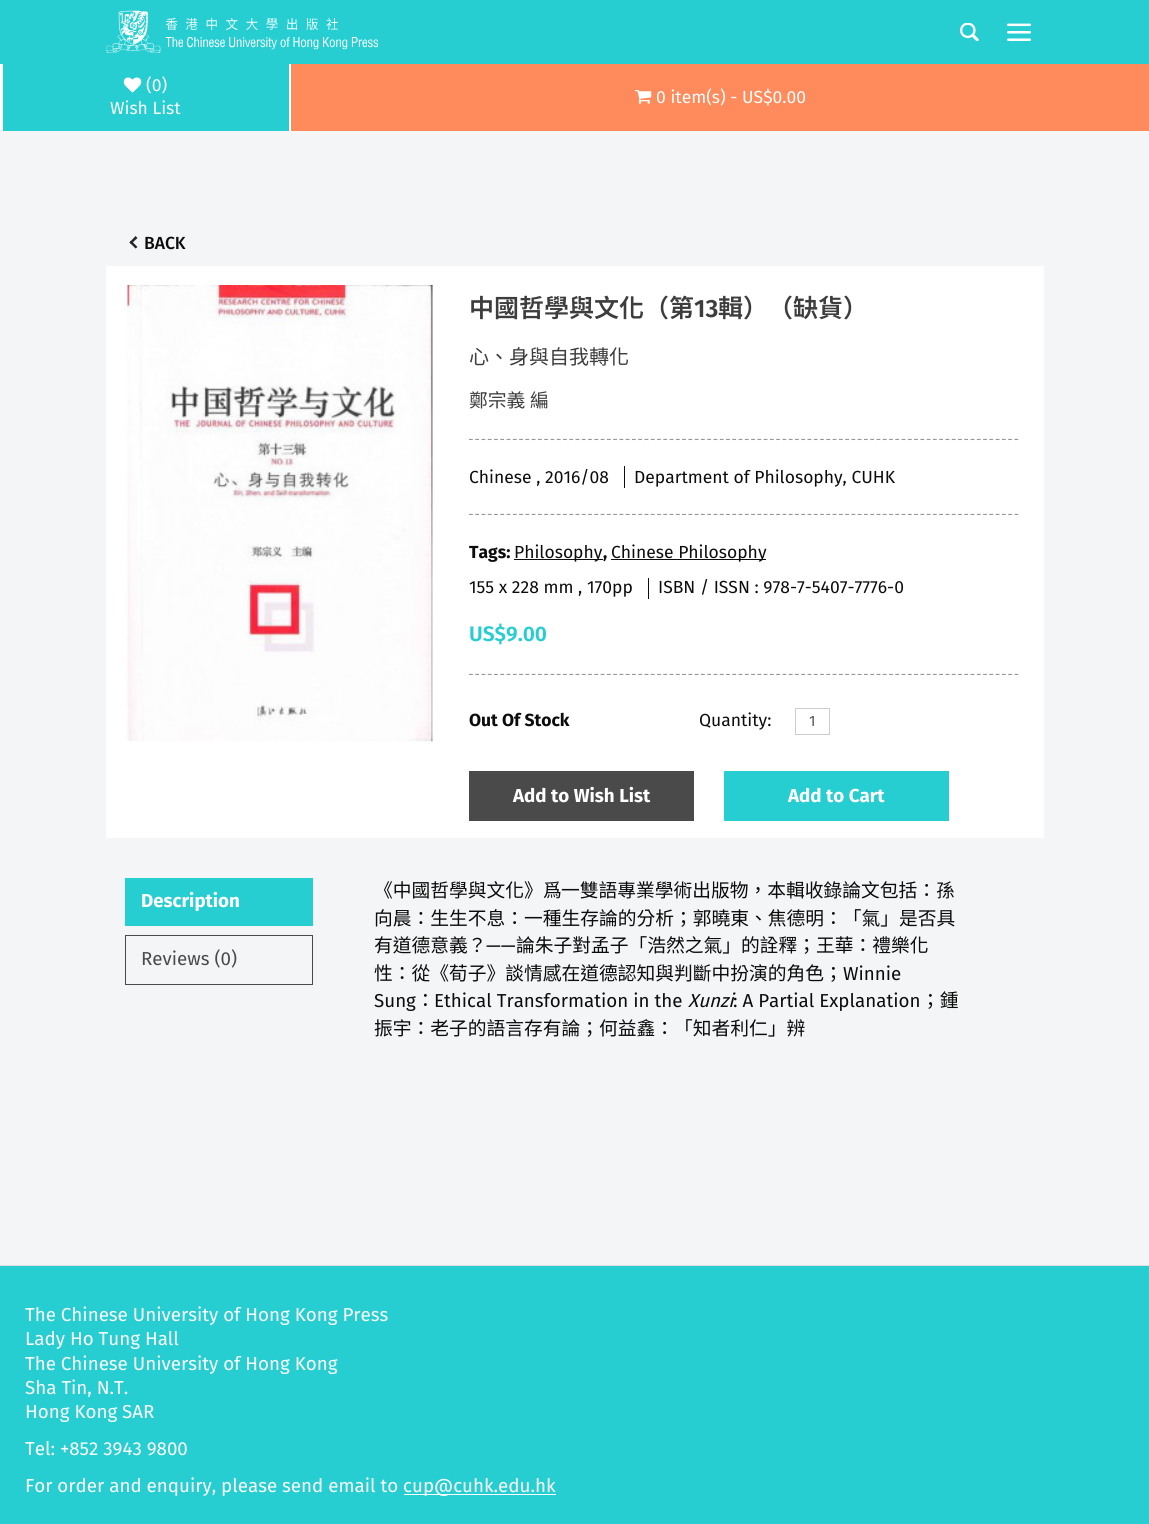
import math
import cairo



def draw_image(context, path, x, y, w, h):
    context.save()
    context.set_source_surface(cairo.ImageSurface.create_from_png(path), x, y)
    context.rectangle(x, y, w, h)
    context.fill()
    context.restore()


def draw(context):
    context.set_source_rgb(244 / 255, 245 / 255, 247 / 255)
    context.paint()
    context.set_source_rgb(38 / 255, 206 / 255, 209 / 255)
    context.rectangle(0, 0, 1149, 64)
    context.fill()
    draw_image(context, "images/1.png", 106, 10, 273, 44)
    draw_image(context, "images/2.png", 960, 23, 19, 18)
    draw_image(context, "images/3.png", 1007, 23, 24, 18)
    context.set_source_rgb(1, 1, 1)
    context.rectangle(0, 64, 291, 67)
    context.fill()
    context.set_source_rgb(38 / 255, 206 / 255, 209 / 255)
    context.rectangle(3, 64, 286, 67)
    context.fill()
    draw_image(context, "images/4.png", 123, 77, 19, 16)
    context.set_source_rgb(1, 139 / 255, 92 / 255)
    context.rectangle(291, 64, 858, 67)
    context.fill()
    draw_image(context, "images/5.png", 635, 90, 17, 14)
    context.set_source_rgb(38 / 255, 38 / 255, 38 / 255)
    context.new_path()
    context.move_to(137.5, 247)
    context.line_to(135.5, 248.5)
    context.line_to(129.5, 242.5)
    context.line_to(131, 240.5)
    context.close_path()
    context.fill()
    context.new_path()
    context.move_to(137.5, 238)
    context.line_to(131, 244)
    context.line_to(129.5, 242.5)
    context.line_to(135.5, 236)
    context.close_path()
    context.fill()
    context.set_source_rgb(1, 1, 1)
    context.rectangle(106, 266, 938, 572)
    context.fill()
    draw_image(context, "images/6.png", 124, 285, 309, 457)
    context.new_path()
    context.move_to(469, 439.5)
    context.line_to(1019, 439.5)
    context.set_source_rgb(139 / 255, 139 / 255, 139 / 255)
    context.set_line_width(1.2)
    context.set_dash([3.75, 2.52])
    context.stroke()
    context.new_path()
    context.move_to(469, 440.5)
    context.line_to(1019, 440.5)
    context.set_source_rgb(1, 1, 1)
    context.stroke()
    context.set_source_rgb(13 / 255, 13 / 255, 13 / 255)
    context.rectangle(624, 466, 1, 22)
    context.fill()
    context.new_path()
    context.move_to(469, 514.5)
    context.line_to(1019, 514.5)
    context.set_source_rgb(139 / 255, 139 / 255, 139 / 255)
    context.stroke()
    context.new_path()
    context.move_to(469, 515.5)
    context.line_to(1019, 515.5)
    context.set_source_rgb(1, 1, 1)
    context.stroke()
    context.set_source_rgb(13 / 255, 13 / 255, 13 / 255)
    context.rectangle(514, 559, 89, 1)
    context.fill()
    context.rectangle(611, 559, 155, 1)
    context.fill()
    context.rectangle(648, 578, 1, 21)
    context.fill()
    context.new_path()
    context.move_to(469, 674.5)
    context.line_to(1019, 674.5)
    context.set_source_rgb(139 / 255, 139 / 255, 139 / 255)
    context.stroke()
    context.new_path()
    context.move_to(469, 675.5)
    context.line_to(1019, 675.5)
    context.set_source_rgb(1, 1, 1)
    context.stroke()
    context.rectangle(795.5, 708.5, 34, 26)
    context.set_source_rgb(204 / 255, 204 / 255, 204 / 255)
    context.set_line_width(1)
    context.set_dash([])
    context.stroke()
    context.set_source_rgb(74 / 255, 74 / 255, 74 / 255)
    context.rectangle(469, 771, 225, 50)
    context.fill()
    context.set_source_rgb(38 / 255, 206 / 255, 209 / 255)
    context.rectangle(724, 771, 225, 50)
    context.fill()
    context.rectangle(125, 878, 188, 48)
    context.fill()
    context.rectangle(125.5, 935.5, 187, 49)
    context.set_source_rgb(74 / 255, 74 / 255, 74 / 255)
    context.stroke()
    context.set_source_rgb(38 / 255, 206 / 255, 209 / 255)
    context.rectangle(0, 1266, 1149, 258)
    context.fill()
    context.set_source_rgb(221 / 255, 221 / 255, 221 / 255)
    context.rectangle(0, 1265, 1149, 1)
    context.fill()
    context.set_source_rgb(1, 1, 1)
    context.rectangle(404, 1494, 152, 1)
    context.fill()
    context.select_font_face("Fira Sans")
    context.set_font_size(17.5)
    context.move_to(146, 91)
    context.show_text("(0)")
    context.move_to(110, 114)
    context.show_text("Wish List")
    context.move_to(656, 103)
    context.show_text("0 item(s) - US$0.00")
    context.select_font_face("Fira Sans Medium")
    context.set_source_rgb(12 / 255, 12 / 255, 12 / 255)
    context.move_to(144, 249)
    context.show_text("BACK")
    context.select_font_face("Noto Sans TC SemiBold")
    context.set_font_size(25)
    context.set_source_rgb(61 / 255, 61 / 255, 61 / 255)
    context.move_to(469, 317)
    context.show_text("中國哲學與文化（第")
    context.select_font_face("Fira Sans SemiBold")
    context.move_to(694, 317)
    context.show_text("13")
    context.select_font_face("Noto Sans TC SemiBold")
    context.move_to(718, 317)
    context.show_text("輯）（缺貨）")
    context.select_font_face("Noto Sans TC")
    context.set_font_size(20)
    context.move_to(469, 364)
    context.show_text("心、身與自我轉化")
    context.set_font_size(18.75)
    context.move_to(469, 407)
    context.show_text("鄭宗義")
    context.move_to(530, 407)
    context.show_text("編")
    context.select_font_face("Fira Sans")
    context.set_font_size(17.5)
    context.set_source_rgb(12 / 255, 12 / 255, 12 / 255)
    context.move_to(469, 483)
    context.show_text("Chinese , 2016/08")
    context.move_to(634, 483)
    context.show_text("Department of Philosophy, CUHK")
    context.select_font_face("Fira Sans", cairo.FontSlant.NORMAL, cairo.FontWeight.BOLD)
    context.move_to(469, 558)
    context.show_text("Tags:")
    context.select_font_face("Fira Sans")
    context.move_to(514, 558)
    context.show_text("Philosophy")
    context.select_font_face("Fira Sans", cairo.FontSlant.NORMAL, cairo.FontWeight.BOLD)
    context.move_to(603, 558)
    context.show_text(",")
    context.select_font_face("Fira Sans")
    context.move_to(611, 558)
    context.show_text("Chinese Philosophy")
    context.move_to(469, 593)
    context.show_text("155 x 228 mm , 170pp")
    context.move_to(658, 593)
    context.show_text("ISBN / ISSN : 978-7-5407-7776-0")
    context.select_font_face("Fira Sans SemiBold")
    context.set_font_size(21)
    context.set_source_rgb(38 / 255, 206 / 255, 209 / 255)
    context.move_to(469, 641)
    context.show_text("US$9.00")
    context.select_font_face("Fira Sans", cairo.FontSlant.NORMAL, cairo.FontWeight.BOLD)
    context.set_font_size(17.5)
    context.set_source_rgb(12 / 255, 12 / 255, 12 / 255)
    context.move_to(469, 726)
    context.show_text("Out Of Stock")
    context.select_font_face("Fira Sans")
    context.move_to(699, 726)
    context.show_text("Quantity:")
    context.set_font_size(15)
    context.set_source_rgb(85 / 255, 85 / 255, 85 / 255)
    context.move_to(809, 726)
    context.show_text("1")
    context.select_font_face("Fira Sans", cairo.FontSlant.NORMAL, cairo.FontWeight.BOLD)
    context.set_font_size(18.75)
    context.set_source_rgb(1, 1, 1)
    context.move_to(513, 802)
    context.show_text("Add to Wish List")
    context.move_to(788, 802)
    context.show_text("Add to Cart")
    context.move_to(141, 907)
    context.show_text("Description")
    context.select_font_face("Fira Sans")
    context.set_source_rgb(74 / 255, 74 / 255, 74 / 255)
    context.move_to(141, 965)
    context.show_text("Reviews (0)")
    context.select_font_face("Noto Sans TC")
    context.set_source_rgb(12 / 255, 12 / 255, 12 / 255)
    context.move_to(374, 897)
    context.show_text("《中國哲學與文化》")
    context.select_font_face("Noto Sans SC")
    context.move_to(543, 897)
    context.show_text("爲")
    context.select_font_face("Noto Sans TC")
    context.move_to(561, 897)
    context.show_text("一雙語專業學術出版物，本輯收錄論文包括：孫")
    context.move_to(374, 925)
    context.show_text("向晨：生生不息：一種生存論的分析；郭曉東、焦德明：「氣」是否具")
    context.move_to(374, 952)
    context.show_text("有道德意義？")
    context.select_font_face("Fira Sans")
    context.move_to(486, 952)
    context.show_text("——")
    context.select_font_face("Noto Sans TC")
    context.move_to(516, 952)
    context.show_text("論朱子對孟子「浩然之氣」的詮釋；王華：禮樂化")
    context.move_to(374, 980)
    context.show_text("性：從《荀子》談情感在道德認知與判斷中扮演的角色；")
    context.select_font_face("Fira Sans")
    context.move_to(843, 980)
    context.show_text("Winnie")
    context.move_to(374, 1007)
    context.show_text("Sung")
    context.select_font_face("Noto Sans TC")
    context.move_to(416, 1007)
    context.show_text("：")
    context.select_font_face("Fira Sans")
    context.move_to(434, 1007)
    context.show_text("Ethical Transformation in the")
    context.select_font_face("Fira Sans", cairo.FontSlant.ITALIC)
    context.move_to(688, 1007)
    context.show_text("Xunzi")
    context.select_font_face("Fira Sans")
    context.move_to(733, 1007)
    context.show_text(": A Partial Explanation")
    context.select_font_face("Noto Sans TC")
    context.move_to(921, 1007)
    context.show_text("；鍾")
    context.move_to(374, 1035)
    context.show_text("振宇：老子的語言存有論；何益鑫：「知者利仁」辨")
    context.select_font_face("Fira Sans")
    context.set_source_rgb(1, 1, 1)
    context.move_to(25, 1321)
    context.show_text("The Chinese University of Hong Kong Press")
    context.move_to(25, 1345)
    context.show_text("Lady Ho Tung Hall")
    context.move_to(25, 1370)
    context.show_text("The Chinese University of Hong Kong")
    context.move_to(25, 1394)
    context.show_text("Sha Tin, N.T.")
    context.move_to(25, 1418)
    context.show_text("Hong Kong SAR")
    context.move_to(25, 1455)
    context.show_text("Tel: +852 3943 9800")
    context.move_to(25, 1492)
    context.show_text("For order and enquiry, please send email to")
    context.move_to(403, 1492)
    context.show_text("cup@cuhk.edu.hk")


surface = cairo.ImageSurface(cairo.Format.RGB24, 1149, 1524)
context = cairo.Context(surface)
options = cairo.FontOptions()
options.set_hint_metrics(cairo.HintMetrics.OFF)
options.set_hint_style(cairo.HintStyle.NONE)
context.set_font_options(options)
context.set_miter_limit(4)
draw(context)
surface.write_to_png("out.png")
